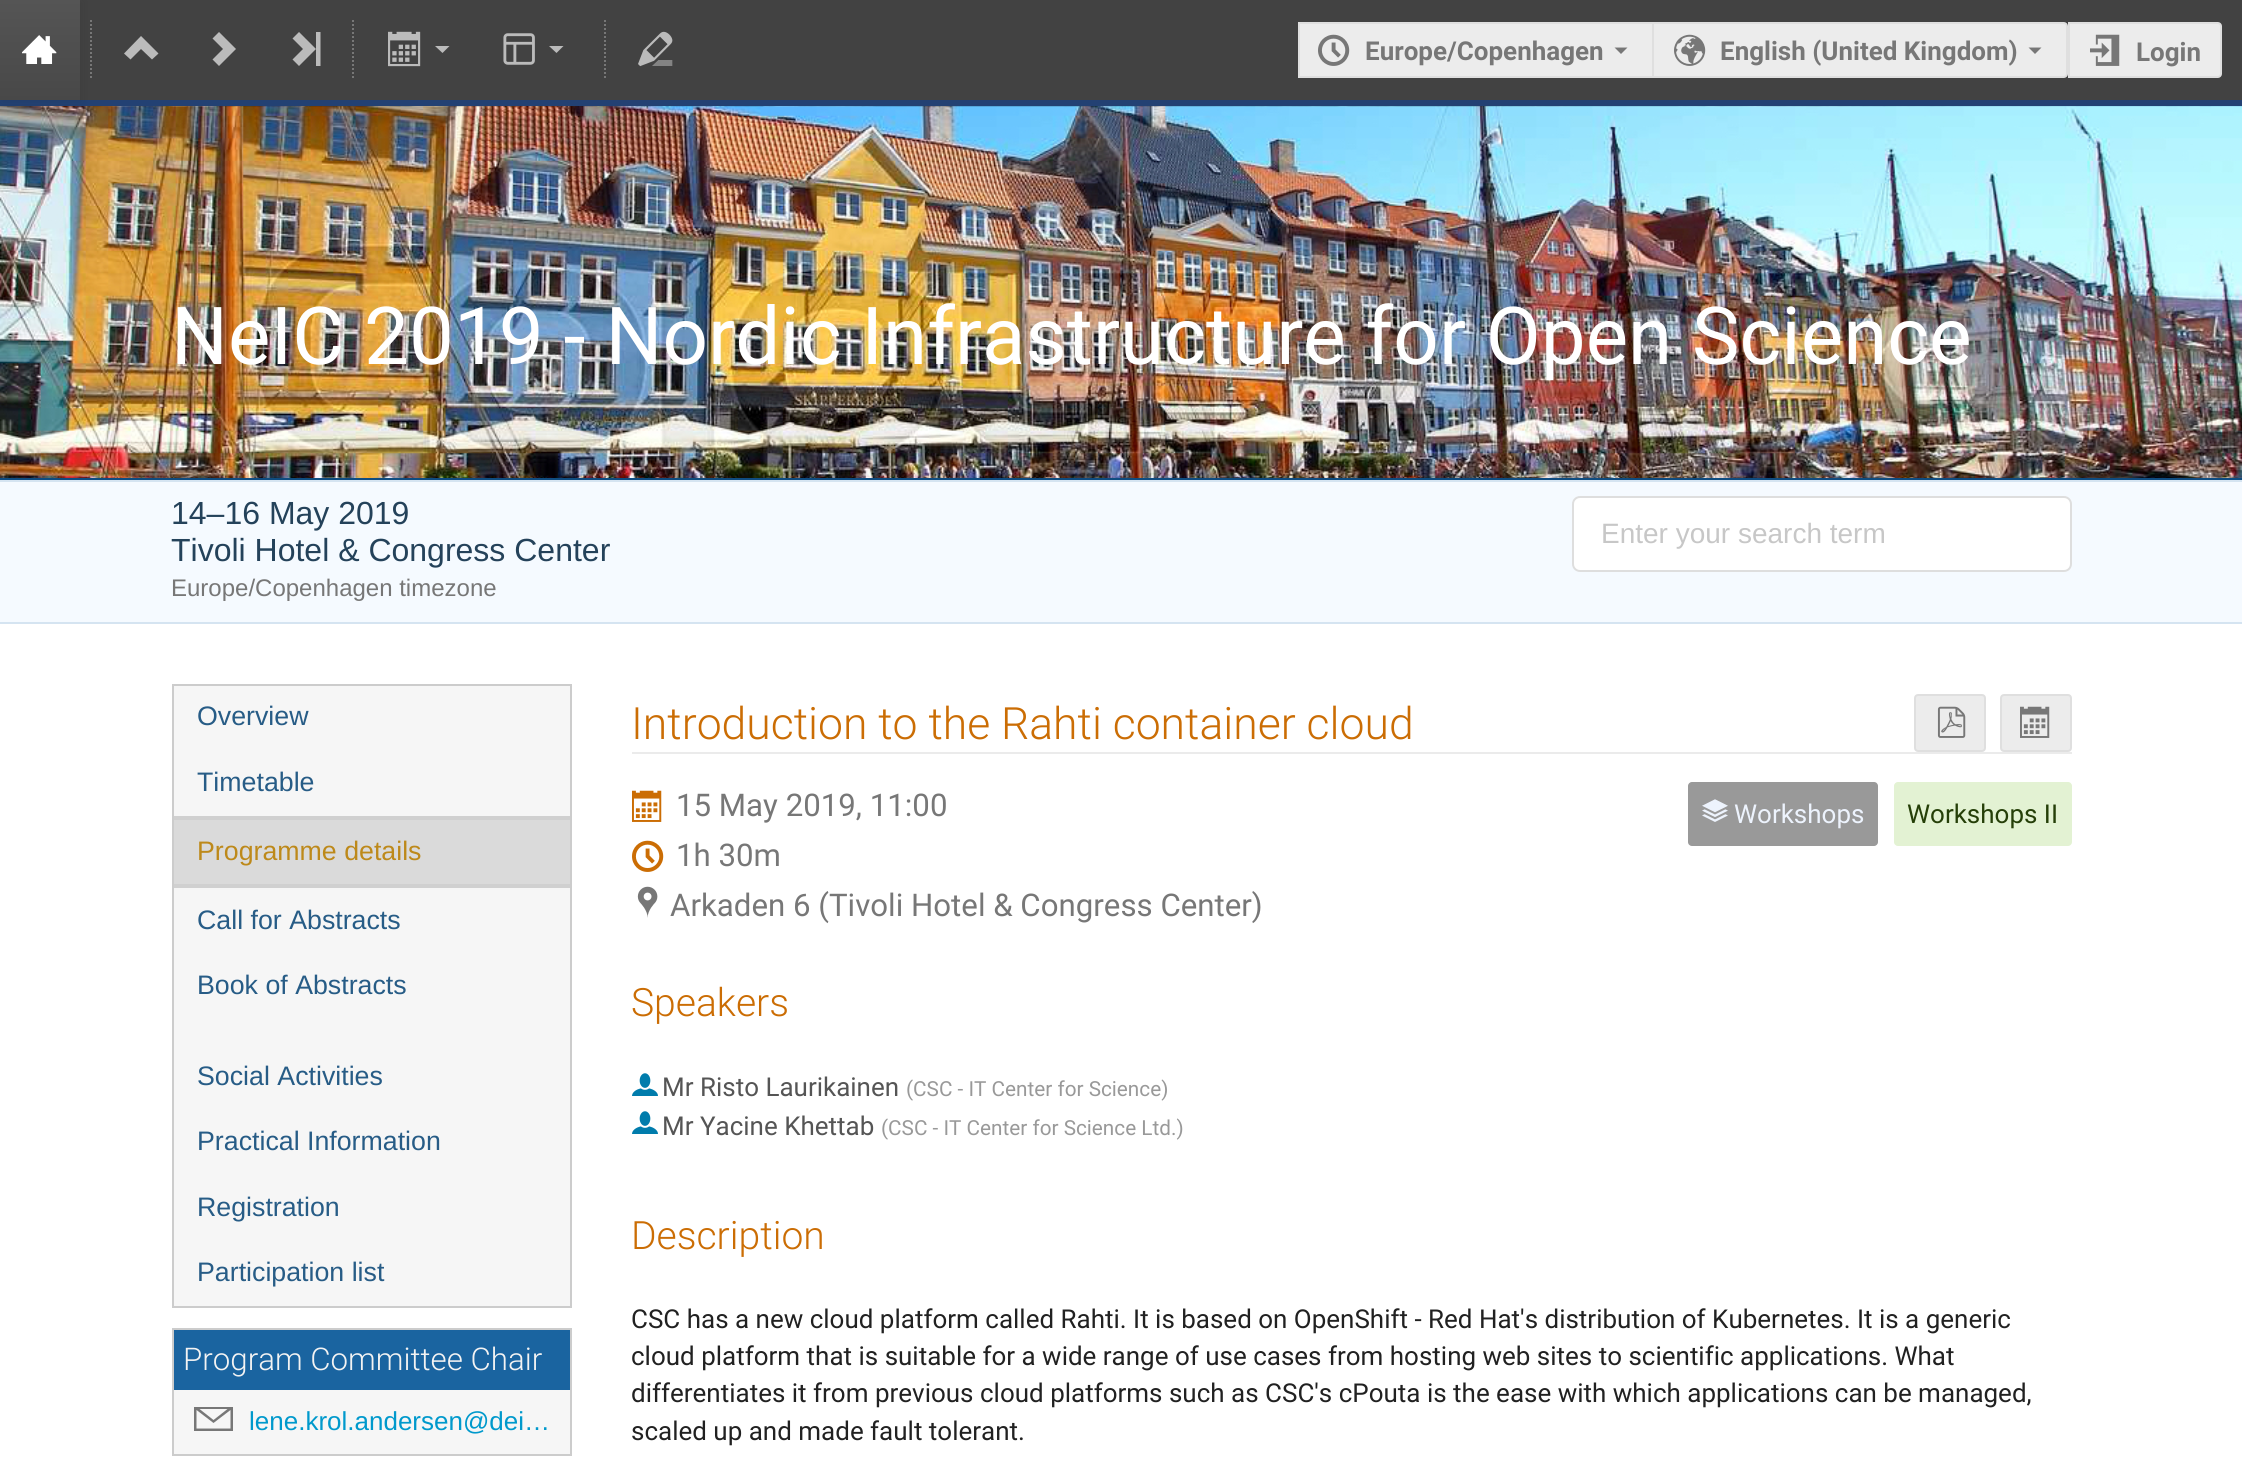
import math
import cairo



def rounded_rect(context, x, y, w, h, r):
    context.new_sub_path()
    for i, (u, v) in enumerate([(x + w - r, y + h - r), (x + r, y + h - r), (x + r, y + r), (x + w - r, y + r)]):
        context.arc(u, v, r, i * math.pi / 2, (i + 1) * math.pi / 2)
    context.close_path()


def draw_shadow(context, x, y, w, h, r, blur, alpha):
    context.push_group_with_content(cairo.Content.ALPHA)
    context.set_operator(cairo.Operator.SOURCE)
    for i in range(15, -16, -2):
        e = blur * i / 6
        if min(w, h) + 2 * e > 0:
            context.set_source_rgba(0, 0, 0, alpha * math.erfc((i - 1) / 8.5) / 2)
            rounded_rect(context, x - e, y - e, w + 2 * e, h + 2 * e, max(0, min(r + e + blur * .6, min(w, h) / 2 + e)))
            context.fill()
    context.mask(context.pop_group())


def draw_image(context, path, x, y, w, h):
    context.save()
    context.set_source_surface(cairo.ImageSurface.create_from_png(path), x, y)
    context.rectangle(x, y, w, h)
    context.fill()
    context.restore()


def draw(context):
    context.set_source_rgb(1, 1, 1)
    context.paint()
    context.set_source_rgb(66 / 255, 66 / 255, 66 / 255)
    context.rectangle(80, 0, 2162, 100)
    context.fill()
    draw_image(context, "images/8.png", 0, 106, 2242, 372)
    context.set_source_rgb(35 / 255, 65 / 255, 115 / 255)
    context.rectangle(0, 100, 2242, 6)
    context.fill()
    context.set_source_rgb(20 / 255, 20 / 255, 20 / 255)
    draw_shadow(context, 2, 2, 80, 100, 0, 4, 0.1)
    gradient = cairo.LinearGradient(40, 0, 40, 100)
    gradient.add_color_stop_rgba(0, 85 / 255, 85 / 255, 85 / 255, 1)
    gradient.add_color_stop_rgba(1, 72 / 255, 72 / 255, 72 / 255, 1)
    context.set_source(gradient)
    context.rectangle(0, 0, 80, 100)
    context.fill()
    draw_image(context, "images/1.png", 22, 35, 35, 29)
    context.new_path()
    context.move_to(91, 20)
    context.line_to(91, 80)
    context.set_source_rgb(119 / 255, 119 / 255, 119 / 255)
    context.set_dash([2, 2])
    context.stroke()
    context.set_source_rgb(187 / 255, 187 / 255, 187 / 255)
    context.new_path()
    context.move_to(124, 53.5)
    context.line_to(130.5, 59.5)
    context.line_to(141, 49)
    context.line_to(152, 59.5)
    context.line_to(158.5, 53.5)
    context.line_to(141, 36)
    context.close_path()
    context.fill()
    context.new_path()
    context.move_to(219, 32)
    context.line_to(212.5, 38.5)
    context.line_to(223, 49)
    context.line_to(212.5, 59.5)
    context.line_to(219, 66)
    context.line_to(236, 49)
    context.close_path()
    context.fill()
    context.new_path()
    context.move_to(292.5, 59.5)
    context.line_to(299, 66)
    context.line_to(316, 49)
    context.line_to(299, 32)
    context.line_to(292.5, 38.5)
    context.line_to(303, 49)
    context.close_path()
    context.move_to(320.5, 66)
    context.line_to(320.5, 32)
    context.line_to(316, 32)
    context.line_to(316, 66)
    context.close_path()
    context.fill()
    context.new_path()
    context.move_to(353, 20)
    context.line_to(353, 80)
    context.set_source_rgb(119 / 255, 119 / 255, 119 / 255)
    context.stroke()
    draw_image(context, "images/2.png", 388, 31, 33, 36)
    context.set_source_rgb(187 / 255, 187 / 255, 187 / 255)
    context.new_path()
    context.move_to(435, 46)
    context.line_to(442.5, 53)
    context.line_to(449.5, 46)
    context.close_path()
    context.fill()
    draw_image(context, "images/3.png", 503, 33, 32, 32)
    context.new_path()
    context.move_to(549, 46)
    context.line_to(556.5, 53)
    context.line_to(563.5, 46)
    context.close_path()
    context.fill()
    context.new_path()
    context.move_to(605, 20)
    context.line_to(605, 80)
    context.set_source_rgb(119 / 255, 119 / 255, 119 / 255)
    context.stroke()
    draw_image(context, "images/4.png", 638, 31, 35, 36)
    context.set_source_rgb(236 / 255, 236 / 255, 236 / 255)
    context.rectangle(1300, 24, 352, 52)
    context.fill()
    context.set_source_rgb(223 / 255, 223 / 255, 223 / 255)
    context.rectangle(1298, 22, 354, 2)
    context.fill()
    context.rectangle(1298, 76, 354, 2)
    context.fill()
    context.rectangle(1298, 22, 2, 56)
    context.fill()
    draw_image(context, "images/5.png", 1318, 34, 32, 32)
    context.set_source_rgb(119 / 255, 119 / 255, 119 / 255)
    context.new_path()
    context.move_to(1614.5, 47.5)
    context.line_to(1621, 54)
    context.line_to(1627.5, 47.5)
    context.close_path()
    context.fill()
    context.set_source_rgb(236 / 255, 236 / 255, 236 / 255)
    context.new_path()
    context.move_to(1653, 23)
    context.line_to(2064, 23)
    context.curve_to(2065.5, 23, 2067, 24.5, 2067, 26)
    context.line_to(2067, 74)
    context.curve_to(2067, 75.5, 2065.5, 77, 2064, 77)
    context.line_to(1653, 77)
    context.close_path()
    context.fill_preserve()
    context.set_source_rgb(223 / 255, 223 / 255, 223 / 255)
    context.set_dash([])
    context.stroke()
    draw_image(context, "images/6.png", 1674, 34, 32, 32)
    context.set_source_rgb(119 / 255, 119 / 255, 119 / 255)
    context.new_path()
    context.move_to(2028.5, 47.5)
    context.line_to(2035, 54)
    context.line_to(2041.5, 47.5)
    context.close_path()
    context.fill()
    context.set_source_rgb(236 / 255, 236 / 255, 236 / 255)
    context.new_path()
    context.move_to(2069, 23)
    context.line_to(2218, 23)
    context.curve_to(2219.5, 23, 2221, 24.5, 2221, 26)
    context.line_to(2221, 74)
    context.curve_to(2221, 75.5, 2219.5, 77, 2218, 77)
    context.line_to(2069, 77)
    context.close_path()
    context.fill_preserve()
    context.set_source_rgb(223 / 255, 223 / 255, 223 / 255)
    context.stroke()
    draw_image(context, "images/7.png", 2090, 34, 30, 32)
    context.set_source_rgb(15 / 255, 76 / 255, 128 / 255)
    context.rectangle(0, 478, 2242, 2)
    context.fill()
    context.set_source_rgb(245 / 255, 250 / 255, 1)
    context.rectangle(0, 482, 2242, 140)
    context.fill()
    context.set_source_rgb(213 / 255, 228 / 255, 241 / 255)
    context.rectangle(0, 480, 2242, 2)
    context.fill()
    context.rectangle(0, 622, 2242, 2)
    context.fill()
    context.set_source_rgb(1, 1, 1)
    rounded_rect(context, 1572, 496, 500, 76, 8)
    context.fill()
    rounded_rect(context, 1573, 497, 498, 74, 7)
    context.set_source_rgba(34 / 255, 36 / 255, 38 / 255, 0.15)
    context.stroke()
    context.set_source_rgb(246 / 255, 246 / 255, 246 / 255)
    context.rectangle(173, 685, 398, 622)
    context.fill_preserve()
    context.set_source_rgb(204 / 255, 204 / 255, 204 / 255)
    context.stroke()
    context.set_source_rgb(218 / 255, 218 / 255, 218 / 255)
    context.rectangle(174, 820, 396, 64)
    context.fill()
    context.set_source_rgb(208 / 255, 208 / 255, 208 / 255)
    context.rectangle(174, 816, 396, 4)
    context.fill()
    context.rectangle(174, 884, 396, 4)
    context.fill()
    context.set_source_rgb(246 / 255, 246 / 255, 246 / 255)
    context.rectangle(174, 1390, 396, 64)
    context.fill()
    context.rectangle(173, 1329, 398, 126)
    context.set_source_rgb(204 / 255, 204 / 255, 204 / 255)
    context.stroke()
    context.set_source_rgb(26 / 255, 100 / 255, 160 / 255)
    context.rectangle(174, 1330, 396, 60)
    context.fill()
    context.set_source_rgb(119 / 255, 119 / 255, 119 / 255)
    context.new_path()
    context.move_to(194, 1407)
    context.line_to(194, 1431)
    context.line_to(233, 1431)
    context.line_to(233, 1407)
    context.close_path()
    context.move_to(227.5, 1409)
    context.line_to(213.5, 1420)
    context.line_to(199.5, 1409)
    context.close_path()
    context.move_to(196.5, 1428.5)
    context.line_to(196.5, 1410)
    context.line_to(213.5, 1423)
    context.line_to(230.5, 1410)
    context.line_to(230.5, 1428.5)
    context.close_path()
    context.fill()
    context.set_source_rgb(235 / 255, 235 / 255, 235 / 255)
    context.rectangle(632, 752, 1440, 2)
    context.fill()
    context.set_source_rgb(236 / 255, 236 / 255, 236 / 255)
    rounded_rect(context, 1915, 695, 70, 56, 3)
    context.fill_preserve()
    context.set_source_rgb(223 / 255, 223 / 255, 223 / 255)
    context.stroke()
    draw_image(context, "images/9.png", 1937, 706, 29, 32)
    context.set_source_rgb(236 / 255, 236 / 255, 236 / 255)
    rounded_rect(context, 2001, 695, 70, 56, 3)
    context.fill_preserve()
    context.set_source_rgb(223 / 255, 223 / 255, 223 / 255)
    context.stroke()
    draw_image(context, "images/10.png", 2020, 706, 30, 32)
    draw_image(context, "images/11.png", 632, 790, 30, 32)
    draw_image(context, "images/12.png", 632, 840, 32, 32)
    draw_image(context, "images/13.png", 637, 886, 21, 32)
    context.set_source_rgb(153 / 255, 153 / 255, 153 / 255)
    rounded_rect(context, 1688, 782, 190, 64, 4)
    context.fill()
    draw_image(context, "images/14.png", 1702, 799, 26, 23)
    context.set_source_rgb(227 / 255, 242 / 255, 211 / 255)
    rounded_rect(context, 1894, 782, 178, 64, 4)
    context.fill()
    draw_image(context, "images/15.png", 632, 1073, 26, 23)
    draw_image(context, "images/15.png", 632, 1111, 26, 23)
    context.select_font_face("Roboto", cairo.FontSlant.NORMAL, cairo.FontWeight.BOLD)
    context.set_font_size(26)
    context.set_source_rgb(119 / 255, 119 / 255, 119 / 255)
    context.move_to(1365, 60)
    context.show_text("Europe/Copenhagen")
    context.move_to(1720, 60)
    context.show_text("English (United Kingdom)")
    context.move_to(2136, 61)
    context.show_text("Login")
    context.select_font_face("Roboto")
    context.set_font_size(80)
    context.set_source_rgb(1, 1, 1)
    context.move_to(171, 364)
    context.show_text("NeIC 2019 - Nordic Infrastructure for Open Science")
    context.select_font_face("Liberation Sans")
    context.set_font_size(32)
    context.set_source_rgb(36 / 255, 66 / 255, 90 / 255)
    context.move_to(171, 524)
    context.show_text("14–16 May 2019")
    context.move_to(171, 561)
    context.show_text("Tivoli Hotel & Congress Center")
    context.set_font_size(24)
    context.set_source_rgb(119 / 255, 119 / 255, 119 / 255)
    context.move_to(171, 596)
    context.show_text("Europe/Copenhagen timezone")
    context.select_font_face("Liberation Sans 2")
    context.set_font_size(28)
    context.set_source_rgb(199 / 255, 199 / 255, 199 / 255)
    context.move_to(1601, 543)
    context.show_text("Enter your search term")
    context.set_font_size(26.75)
    context.set_source_rgb(39 / 255, 92 / 255, 134 / 255)
    context.move_to(197, 725)
    context.show_text("Overview")
    context.move_to(197, 791)
    context.show_text("Timetable")
    context.set_source_rgb(189 / 255, 137 / 255, 26 / 255)
    context.move_to(197, 860)
    context.show_text("Programme details")
    context.set_source_rgb(39 / 255, 92 / 255, 134 / 255)
    context.move_to(197, 929)
    context.show_text("Call for Abstracts")
    context.move_to(197, 994)
    context.show_text("Book of Abstracts")
    context.move_to(197, 1085)
    context.show_text("Social Activities")
    context.move_to(197, 1150)
    context.show_text("Practical Information")
    context.move_to(197, 1216)
    context.show_text("Registration")
    context.move_to(197, 1281)
    context.show_text("Participation list")
    context.select_font_face("Roboto Light")
    context.set_font_size(31.25)
    context.set_source_rgb(243 / 255, 243 / 255, 243 / 255)
    context.move_to(183, 1370)
    context.show_text("Program Committee Chair")
    context.select_font_face("Liberation Sans")
    context.set_font_size(26)
    context.set_source_rgb(0, 153 / 255, 204 / 255)
    context.move_to(249, 1430)
    context.show_text("lene.krol.andersen@dei…")
    context.select_font_face("Roboto Light")
    context.set_font_size(44.5)
    context.set_source_rgb(203 / 255, 109 / 255, 4 / 255)
    context.move_to(631, 739)
    context.show_text("Introduction to the Rahti container cloud")
    context.select_font_face("Roboto")
    context.set_font_size(31.25)
    context.set_source_rgb(119 / 255, 119 / 255, 119 / 255)
    context.move_to(676, 816)
    context.show_text("15 May 2019, 11:00")
    context.move_to(676, 866)
    context.show_text("1h 30m")
    context.move_to(670, 916)
    context.show_text("Arkaden 6 (Tivoli Hotel & Congress Center)")
    context.set_font_size(26)
    context.set_source_rgb(237 / 255, 243 / 255, 253 / 255)
    context.move_to(1734, 823)
    context.show_text("Workshops")
    context.set_source_rgb(37 / 255, 63 / 255, 8 / 255)
    context.move_to(1907, 823)
    context.show_text("Workshops II")
    context.select_font_face("Roboto Light")
    context.set_font_size(39)
    context.set_source_rgb(203 / 255, 109 / 255, 4 / 255)
    context.move_to(631, 1016)
    context.show_text("Speakers")
    context.select_font_face("Roboto")
    context.set_font_size(26)
    context.set_source_rgb(85 / 255, 85 / 255, 85 / 255)
    context.move_to(662, 1096)
    context.show_text("Mr Risto Laurikainen")
    context.set_font_size(20.75)
    context.set_source_rgb(153 / 255, 153 / 255, 153 / 255)
    context.move_to(906, 1096)
    context.show_text("(CSC - IT Center for Science)")
    context.set_font_size(26)
    context.set_source_rgb(85 / 255, 85 / 255, 85 / 255)
    context.move_to(662, 1135)
    context.show_text("Mr Yacine Khettab")
    context.set_font_size(20.75)
    context.set_source_rgb(153 / 255, 153 / 255, 153 / 255)
    context.move_to(881, 1135)
    context.show_text("(CSC - IT Center for Science Ltd.)")
    context.select_font_face("Roboto Light")
    context.set_font_size(39)
    context.set_source_rgb(203 / 255, 109 / 255, 4 / 255)
    context.move_to(631, 1249)
    context.show_text("Description")
    context.select_font_face("Roboto")
    context.set_font_size(26)
    context.set_source_rgb(33 / 255, 33 / 255, 33 / 255)
    context.move_to(631, 1328)
    context.show_text("CSC has a new cloud platform called Rahti. It is based on OpenShift - Red Hat's distribution of Kubernetes. It is a generic")
    context.move_to(631, 1365)
    context.show_text("cloud platform that is suitable for a wide range of use cases from hosting web sites to scientific applications. What")
    context.move_to(631, 1402)
    context.show_text("differentiates it from previous cloud platforms such as CSC's cPouta is the ease with which applications can be managed,")
    context.move_to(631, 1440)
    context.show_text("scaled up and made fault tolerant.")


surface = cairo.ImageSurface(cairo.Format.RGB24, 2242, 1481)
context = cairo.Context(surface)
options = cairo.FontOptions()
options.set_hint_metrics(cairo.HintMetrics.OFF)
options.set_hint_style(cairo.HintStyle.NONE)
context.set_font_options(options)
context.set_miter_limit(4)
draw(context)
surface.write_to_png("out.png")
